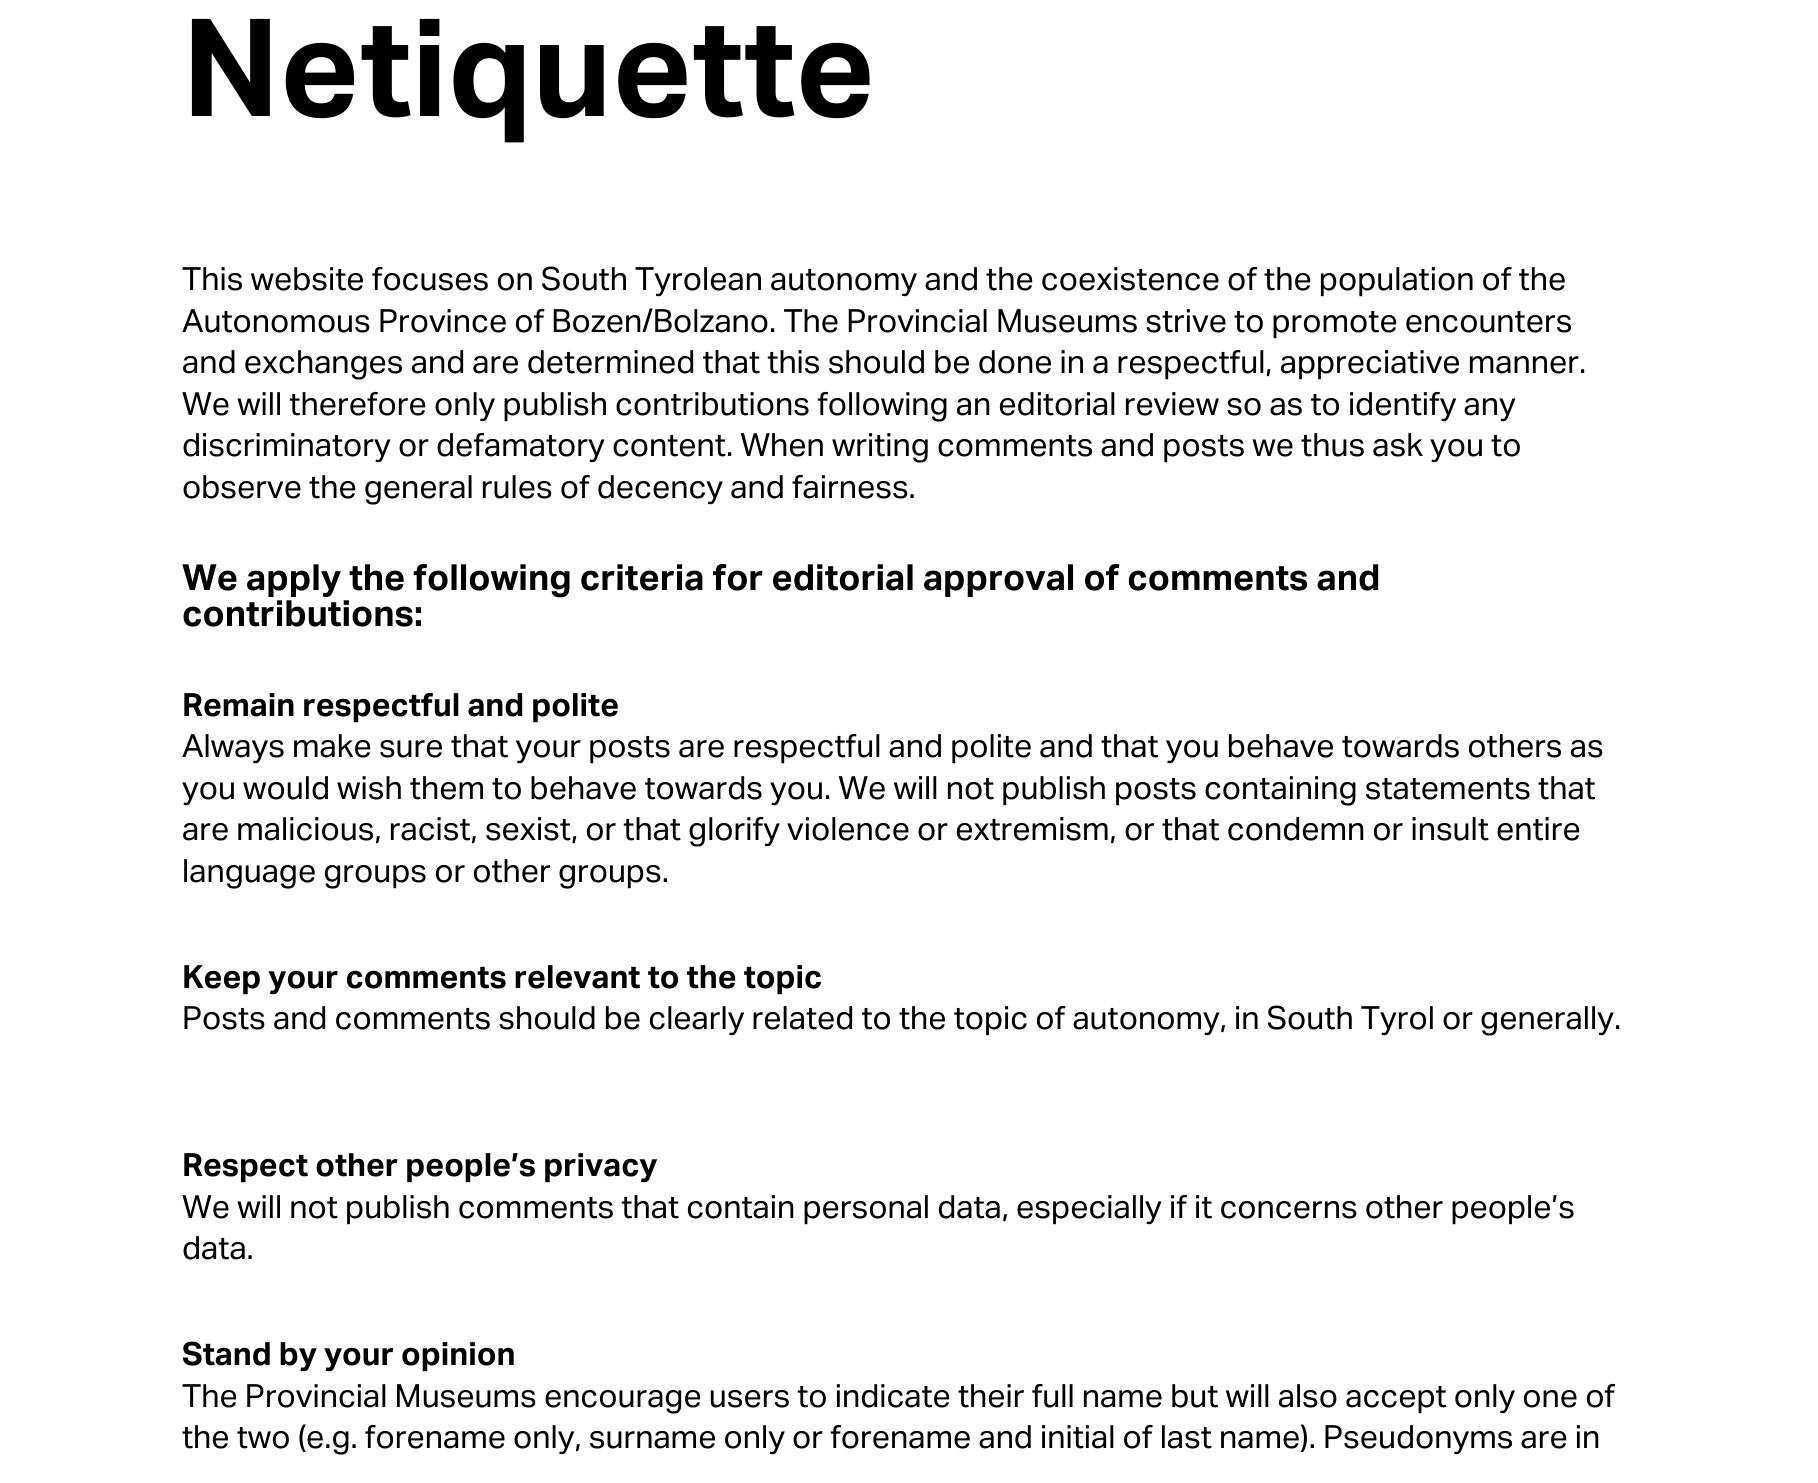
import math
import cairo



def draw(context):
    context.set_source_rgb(1, 1, 1)
    context.paint()
    context.select_font_face("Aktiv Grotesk", cairo.FontSlant.NORMAL, cairo.FontWeight.BOLD)
    context.set_font_size(136)
    context.set_source_rgb(0, 0, 0)
    context.move_to(182, 116)
    context.show_text("Netiquette")
    context.select_font_face("Aktiv Grotesk")
    context.set_font_size(32)
    context.move_to(182, 290)
    context.show_text("This website focuses on South Tyrolean autonomy and the coexistence of the population of the")
    context.move_to(182, 332)
    context.show_text("Autonomous Province of Bozen/Bolzano. The Provincial Museums strive to promote encounters")
    context.move_to(182, 373)
    context.show_text("and exchanges and are determined that this should be done in a respectful, appreciative manner.")
    context.move_to(182, 415)
    context.show_text("We will therefore only publish contributions following an editorial review so as to identify any")
    context.move_to(182, 456)
    context.show_text("discriminatory or defamatory content. When writing comments and posts we thus ask you to")
    context.move_to(182, 498)
    context.show_text("observe the general rules of decency and fairness.")
    context.select_font_face("Aktiv Grotesk", cairo.FontSlant.NORMAL, cairo.FontWeight.BOLD)
    context.set_font_size(36)
    context.move_to(182, 590)
    context.show_text("We apply the following criteria for editorial approval of comments and")
    context.move_to(182, 626)
    context.show_text("contributions:")
    context.set_font_size(32)
    context.move_to(182, 716)
    context.show_text("Remain respectful and polite")
    context.select_font_face("Aktiv Grotesk")
    context.move_to(182, 757)
    context.show_text("Always make sure that your posts are respectful and polite and that you behave towards others as")
    context.move_to(182, 799)
    context.show_text("you would wish them to behave towards you. We will not publish posts containing statements that")
    context.move_to(182, 840)
    context.show_text("are malicious, racist, sexist, or that glorify violence or extremism, or that condemn or insult entire")
    context.move_to(182, 882)
    context.show_text("language groups or other groups.")
    context.select_font_face("Aktiv Grotesk", cairo.FontSlant.NORMAL, cairo.FontWeight.BOLD)
    context.move_to(182, 988)
    context.show_text("Keep your comments relevant to the topic")
    context.select_font_face("Aktiv Grotesk")
    context.move_to(182, 1029)
    context.show_text("Posts and comments should be clearly related to the topic of autonomy, in South Tyrol or generally.")
    context.select_font_face("Aktiv Grotesk", cairo.FontSlant.NORMAL, cairo.FontWeight.BOLD)
    context.move_to(182, 1176)
    context.show_text("Respect other people’s privacy")
    context.select_font_face("Aktiv Grotesk")
    context.move_to(182, 1218)
    context.show_text("We will not publish comments that contain personal data, especially if it concerns other people’s")
    context.move_to(182, 1259)
    context.show_text("data.")
    context.select_font_face("Aktiv Grotesk", cairo.FontSlant.NORMAL, cairo.FontWeight.BOLD)
    context.move_to(182, 1365)
    context.show_text("Stand by your opinion")
    context.select_font_face("Aktiv Grotesk")
    context.move_to(182, 1407)
    context.show_text("The Provincial Museums encourage users to indicate their full name but will also accept only one of")
    context.move_to(182, 1448)
    context.show_text("the two (e.g. forename only, surname only or forename and initial of last name). Pseudonyms are in")


surface = cairo.ImageSurface(cairo.Format.RGB24, 1818, 1483)
context = cairo.Context(surface)
options = cairo.FontOptions()
options.set_hint_metrics(cairo.HintMetrics.OFF)
options.set_hint_style(cairo.HintStyle.NONE)
context.set_font_options(options)
context.set_miter_limit(4)
draw(context)
surface.write_to_png("out.png")
